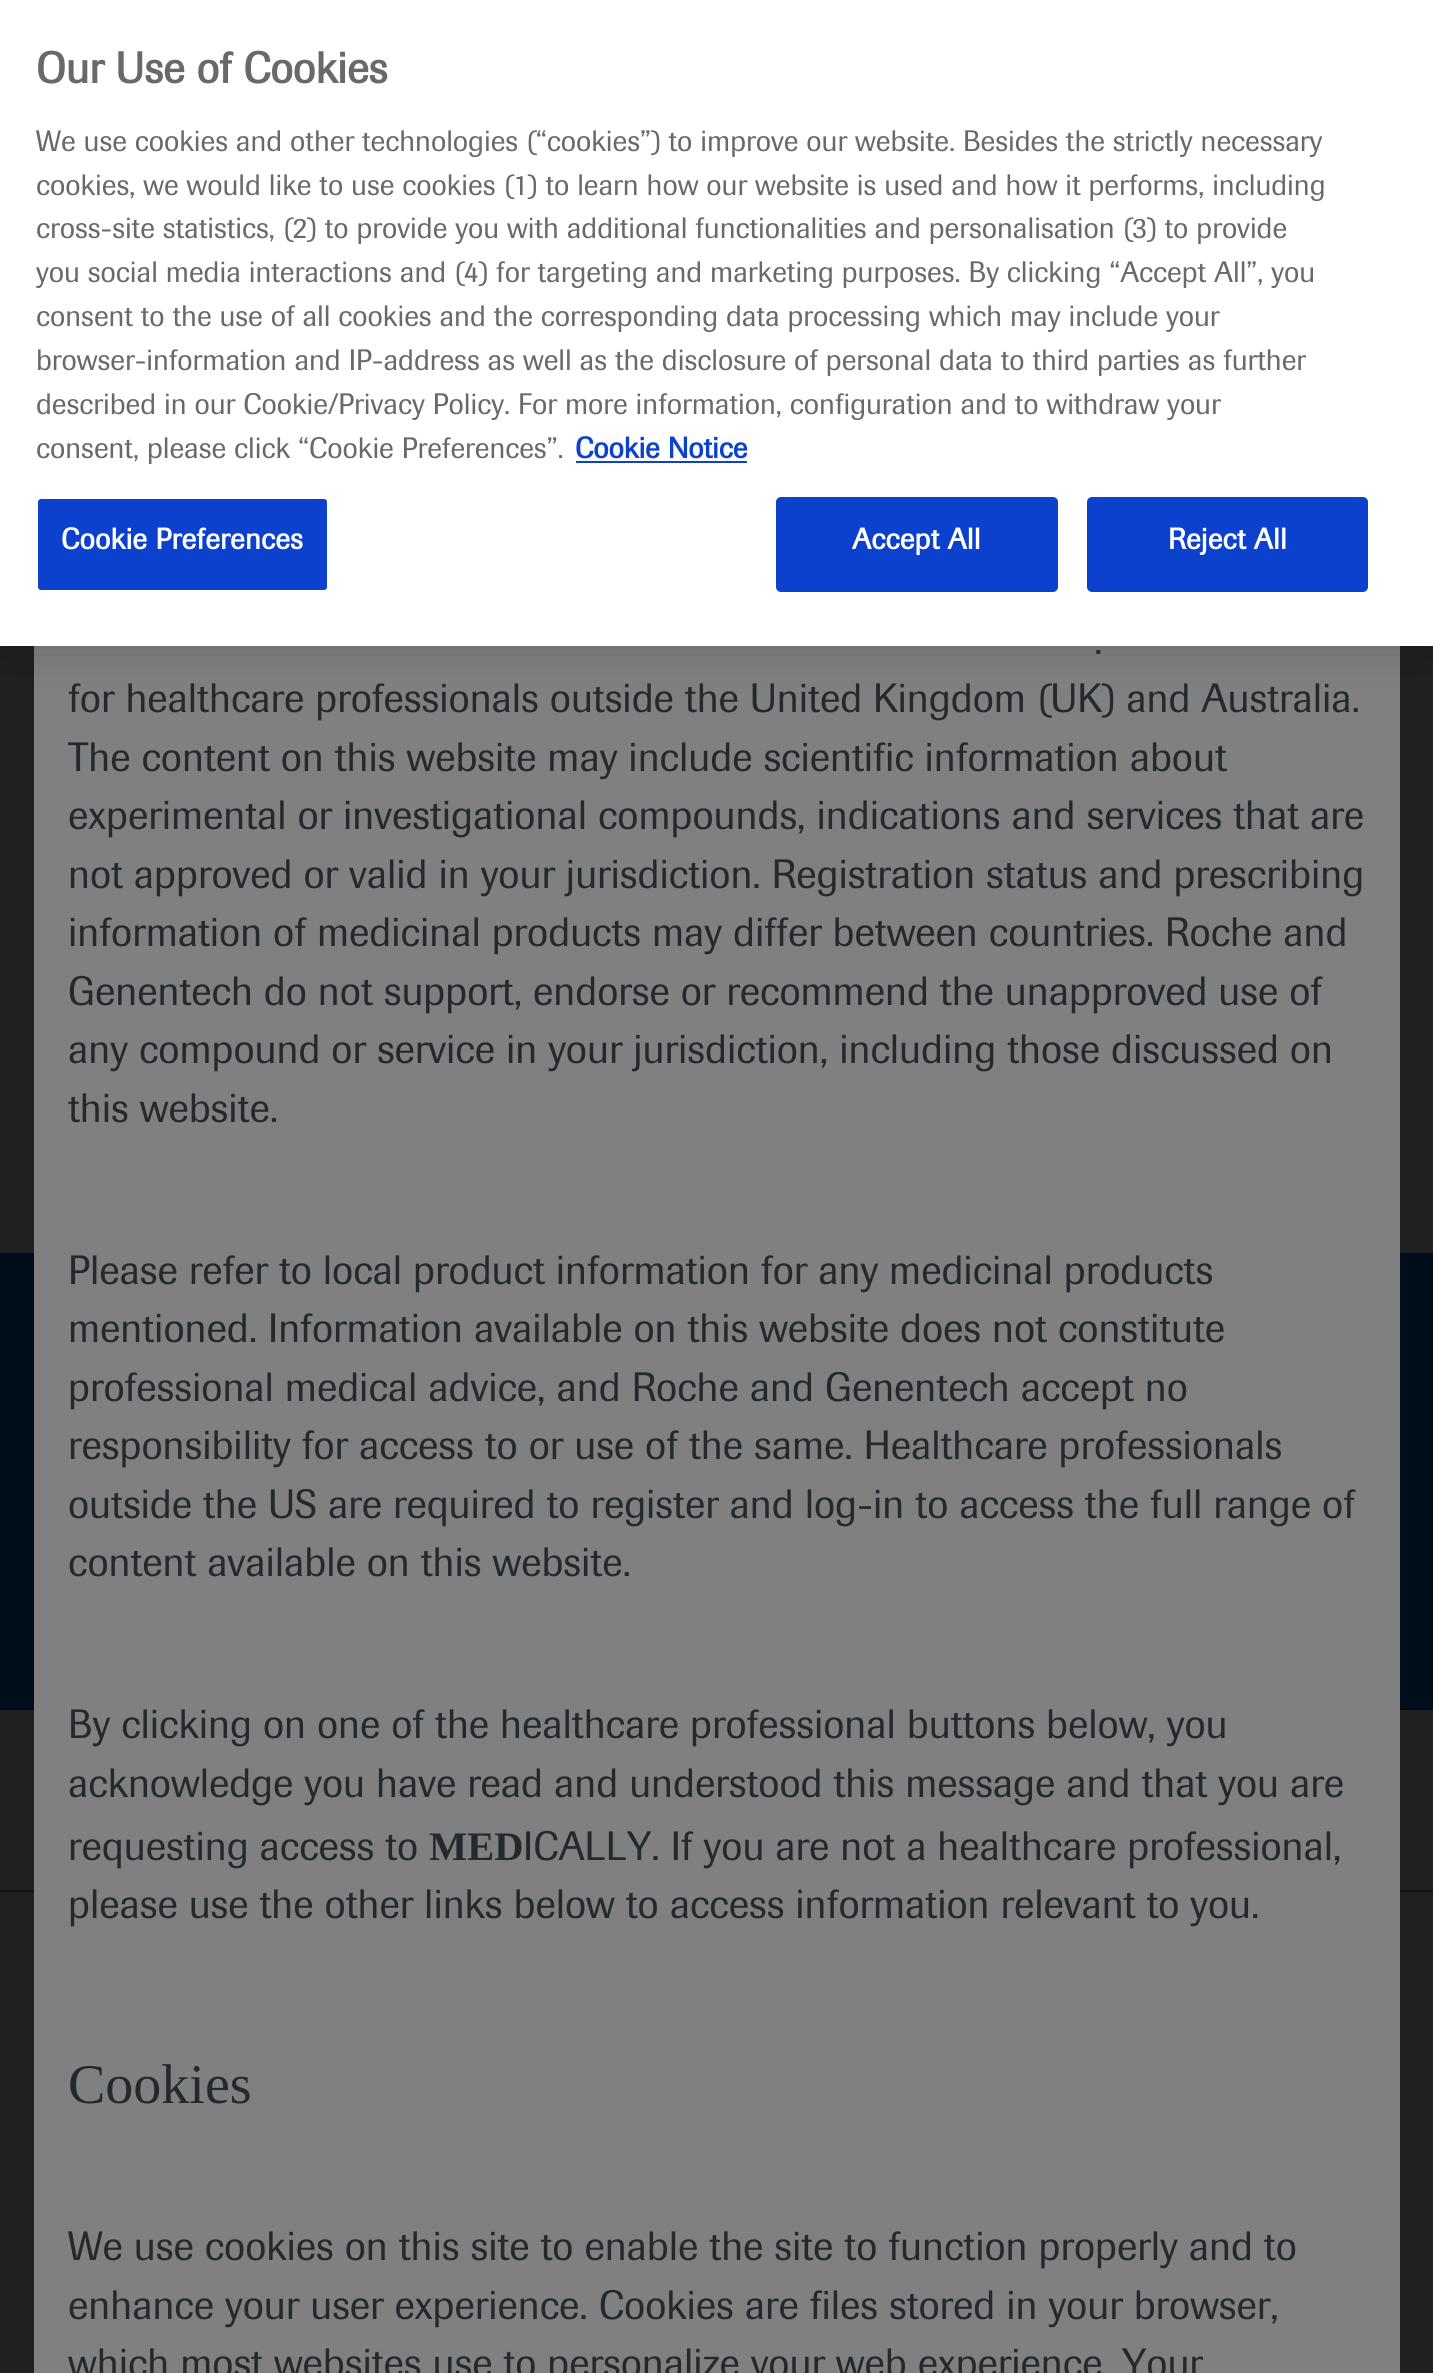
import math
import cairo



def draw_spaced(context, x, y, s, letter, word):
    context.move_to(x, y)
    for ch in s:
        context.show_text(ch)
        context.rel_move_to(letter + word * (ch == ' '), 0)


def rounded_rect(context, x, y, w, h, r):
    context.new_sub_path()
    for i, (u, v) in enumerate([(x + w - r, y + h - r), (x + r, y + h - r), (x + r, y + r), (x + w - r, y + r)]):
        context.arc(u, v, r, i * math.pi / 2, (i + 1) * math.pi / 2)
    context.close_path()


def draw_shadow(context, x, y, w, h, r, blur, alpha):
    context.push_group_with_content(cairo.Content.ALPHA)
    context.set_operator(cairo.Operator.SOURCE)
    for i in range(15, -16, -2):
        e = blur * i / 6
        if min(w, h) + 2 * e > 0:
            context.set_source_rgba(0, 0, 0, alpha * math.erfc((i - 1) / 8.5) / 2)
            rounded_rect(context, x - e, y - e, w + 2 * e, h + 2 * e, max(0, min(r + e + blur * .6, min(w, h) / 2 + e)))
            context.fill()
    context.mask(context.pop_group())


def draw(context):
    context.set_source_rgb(32 / 255, 32 / 255, 32 / 255)
    context.paint()
    context.set_source_rgb(0, 13 / 255, 26 / 255)
    context.rectangle(0, 1253, 1433, 457)
    context.fill()
    context.set_source_rgb(21 / 255, 21 / 255, 22 / 255)
    context.rectangle(0, 1890, 1433, 2)
    context.fill()
    context.set_source_rgb(128 / 255, 128 / 255, 128 / 255)
    context.rectangle(34, 646, 1366, 1727)
    context.fill()
    context.set_source_rgb(0, 0, 0)
    draw_shadow(context, 0, 0, 1433, 646, 0, 20, 0.2)
    context.set_source_rgb(1, 1, 1)
    context.rectangle(0, 0, 1433, 646)
    context.fill()
    context.set_source_rgb(11 / 255, 65 / 255, 205 / 255)
    context.rectangle(576, 461, 171, 2)
    context.fill()
    rounded_rect(context, 37, 498, 291, 93, 4)
    context.fill_preserve()
    context.set_source_rgb(1, 1, 1)
    context.stroke()
    context.set_source_rgb(11 / 255, 65 / 255, 205 / 255)
    rounded_rect(context, 777, 498, 280, 93, 4)
    context.fill_preserve()
    context.stroke()
    rounded_rect(context, 1088, 498, 279, 93, 4)
    context.fill_preserve()
    context.stroke()
    context.select_font_face("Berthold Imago", cairo.FontSlant.NORMAL, cairo.FontWeight.BOLD)
    context.set_font_size(43.25)
    context.set_source_rgb(105 / 255, 105 / 255, 105 / 255)
    context.move_to(36, 83)
    context.show_text("Our Use of Cookies")
    context.select_font_face("Berthold Imago")
    context.set_font_size(29.25)
    context.move_to(36, 151)
    context.show_text("We use cookies and other technologies (“cookies”) to improve our website. Besides the strictly necessary")
    context.move_to(36, 195)
    context.show_text("cookies, we would like to use cookies (1) to learn how our website is used and how it performs, including")
    context.move_to(36, 238)
    context.show_text("cross-site statistics, (2) to provide you with additional functionalities and personalisation (3) to provide")
    context.move_to(36, 282)
    context.show_text("you social media interactions and (4) for targeting and marketing purposes. By clicking “Accept All”, you")
    context.move_to(36, 326)
    context.show_text("consent to the use of all cookies and the corresponding data processing which may include your")
    context.move_to(36, 370)
    context.show_text("browser-information and IP-address as well as the disclosure of personal data to third parties as further")
    context.move_to(36, 414)
    context.show_text("described in our Cookie/Privacy Policy. For more information, configuration and to withdraw your")
    context.move_to(36, 458)
    context.show_text("consent, please click “Cookie Preferences”.")
    context.select_font_face("Berthold Imago", cairo.FontSlant.NORMAL, cairo.FontWeight.BOLD)
    context.set_source_rgb(11 / 255, 65 / 255, 205 / 255)
    context.move_to(575, 458)
    context.show_text("Cookie Notice")
    context.set_source_rgb(1, 1, 1)
    draw_spaced(context, 61, 549, "Cookie Preferences", 0.25, 0)
    draw_spaced(context, 852, 549, "Accept All", 0.25, 0)
    draw_spaced(context, 1168, 549, "Reject All", 0.25, 0)
    context.select_font_face("Berthold Imago")
    context.set_font_size(40.5)
    context.set_source_rgb(36 / 255, 41 / 255, 46 / 255)
    context.move_to(1094, 654)
    context.show_text(".")
    context.move_to(68, 712)
    context.show_text("for healthcare professionals outside the United Kingdom (UK) and Australia.")
    context.move_to(68, 771)
    context.show_text("The content on this website may include scientific information about")
    context.move_to(68, 829)
    context.show_text("experimental or investigational compounds, indications and services that are")
    context.move_to(68, 888)
    context.show_text("not approved or valid in your jurisdiction. Registration status and prescribing")
    context.move_to(68, 946)
    context.show_text("information of medicinal products may differ between countries. Roche and")
    context.move_to(68, 1005)
    context.show_text("Genentech do not support, endorse or recommend the unapproved use of")
    context.move_to(68, 1063)
    context.show_text("any compound or service in your jurisdiction, including those discussed on")
    context.move_to(68, 1122)
    context.show_text("this website.")
    context.move_to(68, 1284)
    context.show_text("Please refer to local product information for any medicinal products")
    context.move_to(68, 1342)
    context.show_text("mentioned. Information available on this website does not constitute")
    context.move_to(68, 1401)
    context.show_text("professional medical advice, and Roche and Genentech accept no")
    context.move_to(68, 1459)
    context.show_text("responsibility for access to or use of the same. Healthcare professionals")
    context.move_to(68, 1518)
    context.show_text("outside the US are required to register and log-in to access the full range of")
    context.move_to(68, 1576)
    context.show_text("content available on this website.")
    context.move_to(68, 1738)
    context.show_text("By clicking on one of the healthcare professional buttons below, you")
    context.move_to(68, 1797)
    context.show_text("acknowledge you have read and understood this message and that you are")
    context.move_to(68, 1860)
    context.show_text("requesting access to")
    context.select_font_face("Liberation Serif", cairo.FontSlant.NORMAL, cairo.FontWeight.BOLD)
    context.move_to(429, 1860)
    context.show_text("MED")
    context.select_font_face("Berthold Imago")
    context.move_to(523, 1860)
    context.show_text("ICALLY. If you are not a healthcare professional,")
    context.move_to(68, 1918)
    context.show_text("please use the other links below to access information relevant to you.")
    context.select_font_face("Liberation Serif")
    context.set_font_size(56)
    context.move_to(68, 2103)
    context.show_text("Cookies")
    context.select_font_face("Berthold Imago")
    context.set_font_size(40.5)
    context.move_to(68, 2260)
    context.show_text("We use cookies on this site to enable the site to function properly and to")
    context.move_to(68, 2319)
    context.show_text("enhance your user experience. Cookies are files stored in your browser,")
    context.move_to(68, 2377)
    context.show_text("which most websites use to personalize your web experience. Your")


surface = cairo.ImageSurface(cairo.Format.RGB24, 1433, 2373)
context = cairo.Context(surface)
options = cairo.FontOptions()
options.set_hint_metrics(cairo.HintMetrics.OFF)
options.set_hint_style(cairo.HintStyle.NONE)
context.set_font_options(options)
context.set_miter_limit(4)
draw(context)
surface.write_to_png("out.png")
